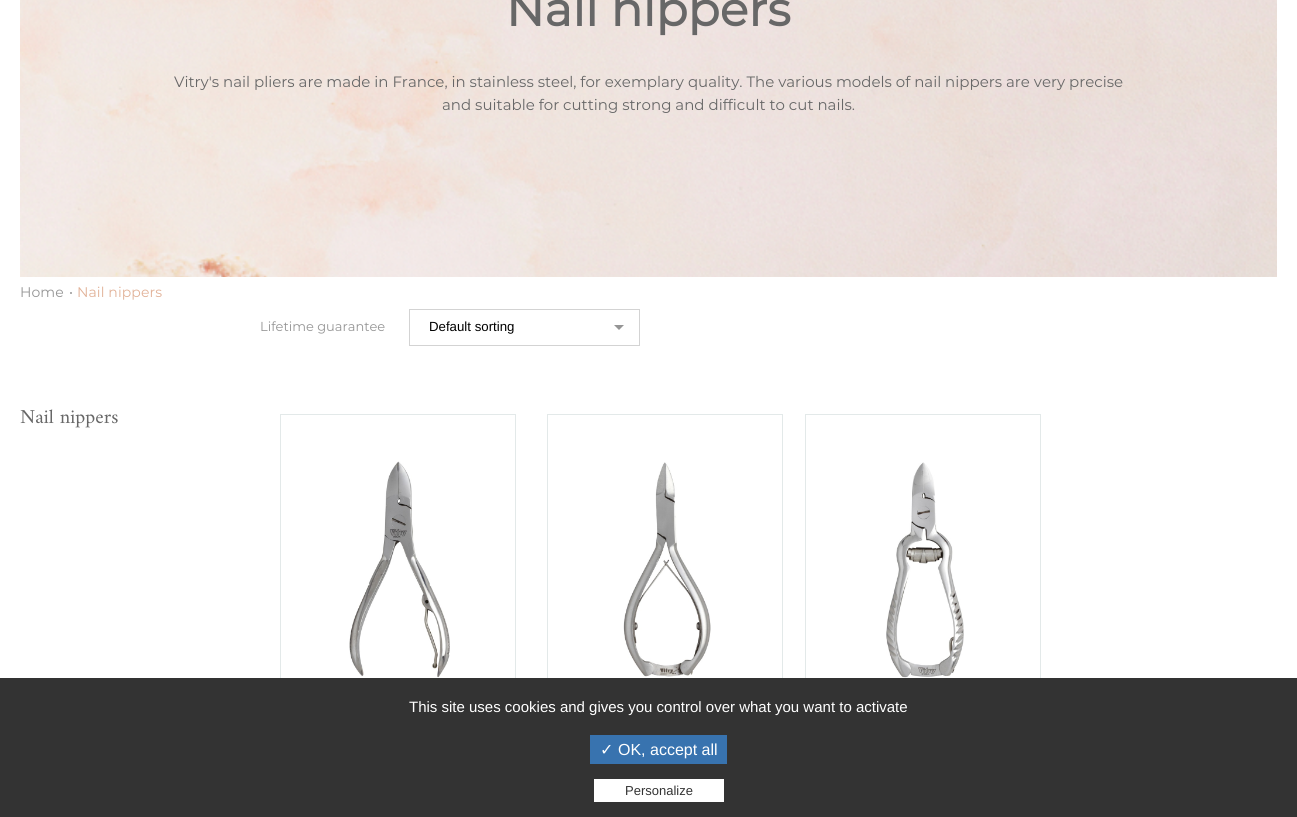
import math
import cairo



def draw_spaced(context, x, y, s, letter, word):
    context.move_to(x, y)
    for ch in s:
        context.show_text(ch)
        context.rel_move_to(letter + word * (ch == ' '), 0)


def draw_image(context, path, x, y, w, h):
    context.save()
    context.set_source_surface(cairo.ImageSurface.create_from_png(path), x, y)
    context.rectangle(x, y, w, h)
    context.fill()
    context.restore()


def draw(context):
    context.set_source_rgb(1, 1, 1)
    context.paint()
    draw_image(context, "images/1.png", 20, 0, 1257, 277)
    context.set_source_rgb(149 / 255, 149 / 255, 149 / 255)
    context.arc(71, 293, 1, 0, 2 * math.pi)
    context.fill()
    draw_image(context, "images/2.png", 614, 325, 10, 5)
    context.rectangle(409.5, 309.5, 230, 36)
    context.set_source_rgb(211 / 255, 211 / 255, 211 / 255)
    context.set_line_width(1)
    context.stroke()
    context.rectangle(280.5, 414.5, 235, 309)
    context.set_source_rgb(227 / 255, 233 / 255, 233 / 255)
    context.stroke()
    draw_image(context, "images/3.png", 349, 461, 101, 217)
    context.rectangle(547.5, 414.5, 235, 309)
    context.stroke()
    draw_image(context, "images/4.png", 623, 462, 88, 215)
    context.rectangle(805.5, 414.5, 235, 309)
    context.stroke()
    draw_image(context, "images/5.png", 886, 462, 78, 216)
    context.set_source_rgb(51 / 255, 51 / 255, 51 / 255)
    context.rectangle(0, 678, 1297, 139)
    context.fill()
    context.set_source_rgb(56 / 255, 115 / 255, 175 / 255)
    context.rectangle(590, 735, 137, 29)
    context.fill()
    context.set_source_rgb(1, 1, 1)
    context.rectangle(594, 779, 130, 23)
    context.fill()
    context.select_font_face("Montserrat", cairo.FontSlant.NORMAL, cairo.FontWeight.BOLD)
    context.set_font_size(47)
    context.set_source_rgb(103 / 255, 103 / 255, 103 / 255)
    draw_spaced(context, 506, 26, "Nail nippers", 0.25, 0)
    context.select_font_face("Montserrat")
    context.set_font_size(15)
    context.move_to(174, 87)
    context.show_text("Vitry's nail pliers are made in France, in stainless steel, for exemplary quality. The various models of nail nippers are very precise")
    context.move_to(442, 110)
    context.show_text("and suitable for cutting strong and difficult to cut nails.")
    context.set_font_size(14)
    context.set_source_rgb(149 / 255, 149 / 255, 149 / 255)
    draw_spaced(context, 20, 297, "Home", 0.1, 0)
    context.set_source_rgb(225 / 255, 177 / 255, 151 / 255)
    draw_spaced(context, 77, 297, "Nail nippers", 0.1, 0)
    context.set_font_size(13)
    context.set_source_rgb(149 / 255, 149 / 255, 149 / 255)
    context.move_to(260, 331)
    context.show_text("Lifetime guarantee")
    context.select_font_face("Liberation Sans")
    context.set_font_size(13.25)
    context.set_source_rgb(0, 0, 0)
    context.move_to(429, 331)
    context.show_text("Default sorting")
    context.select_font_face("Amiri")
    context.set_font_size(20)
    context.set_source_rgb(103 / 255, 103 / 255, 103 / 255)
    context.move_to(20, 423)
    context.show_text("Nail nippers")
    context.select_font_face("Liberation Sans")
    context.set_font_size(15)
    context.set_source_rgb(1, 1, 1)
    context.move_to(409, 712)
    context.show_text("This site uses cookies and gives you control over what you want to activate")
    context.select_font_face("DejaVu Sans")
    context.set_font_size(16)
    context.move_to(600, 755)
    context.show_text("✓")
    context.select_font_face("Liberation Sans")
    context.move_to(618, 755)
    context.show_text("OK, accept all")
    context.set_font_size(13)
    context.set_source_rgb(51 / 255, 51 / 255, 51 / 255)
    context.move_to(625, 795)
    context.show_text("Personalize")


surface = cairo.ImageSurface(cairo.Format.RGB24, 1297, 817)
context = cairo.Context(surface)
options = cairo.FontOptions()
options.set_hint_metrics(cairo.HintMetrics.OFF)
options.set_hint_style(cairo.HintStyle.NONE)
context.set_font_options(options)
context.set_miter_limit(4)
draw(context)
surface.write_to_png("out.png")
